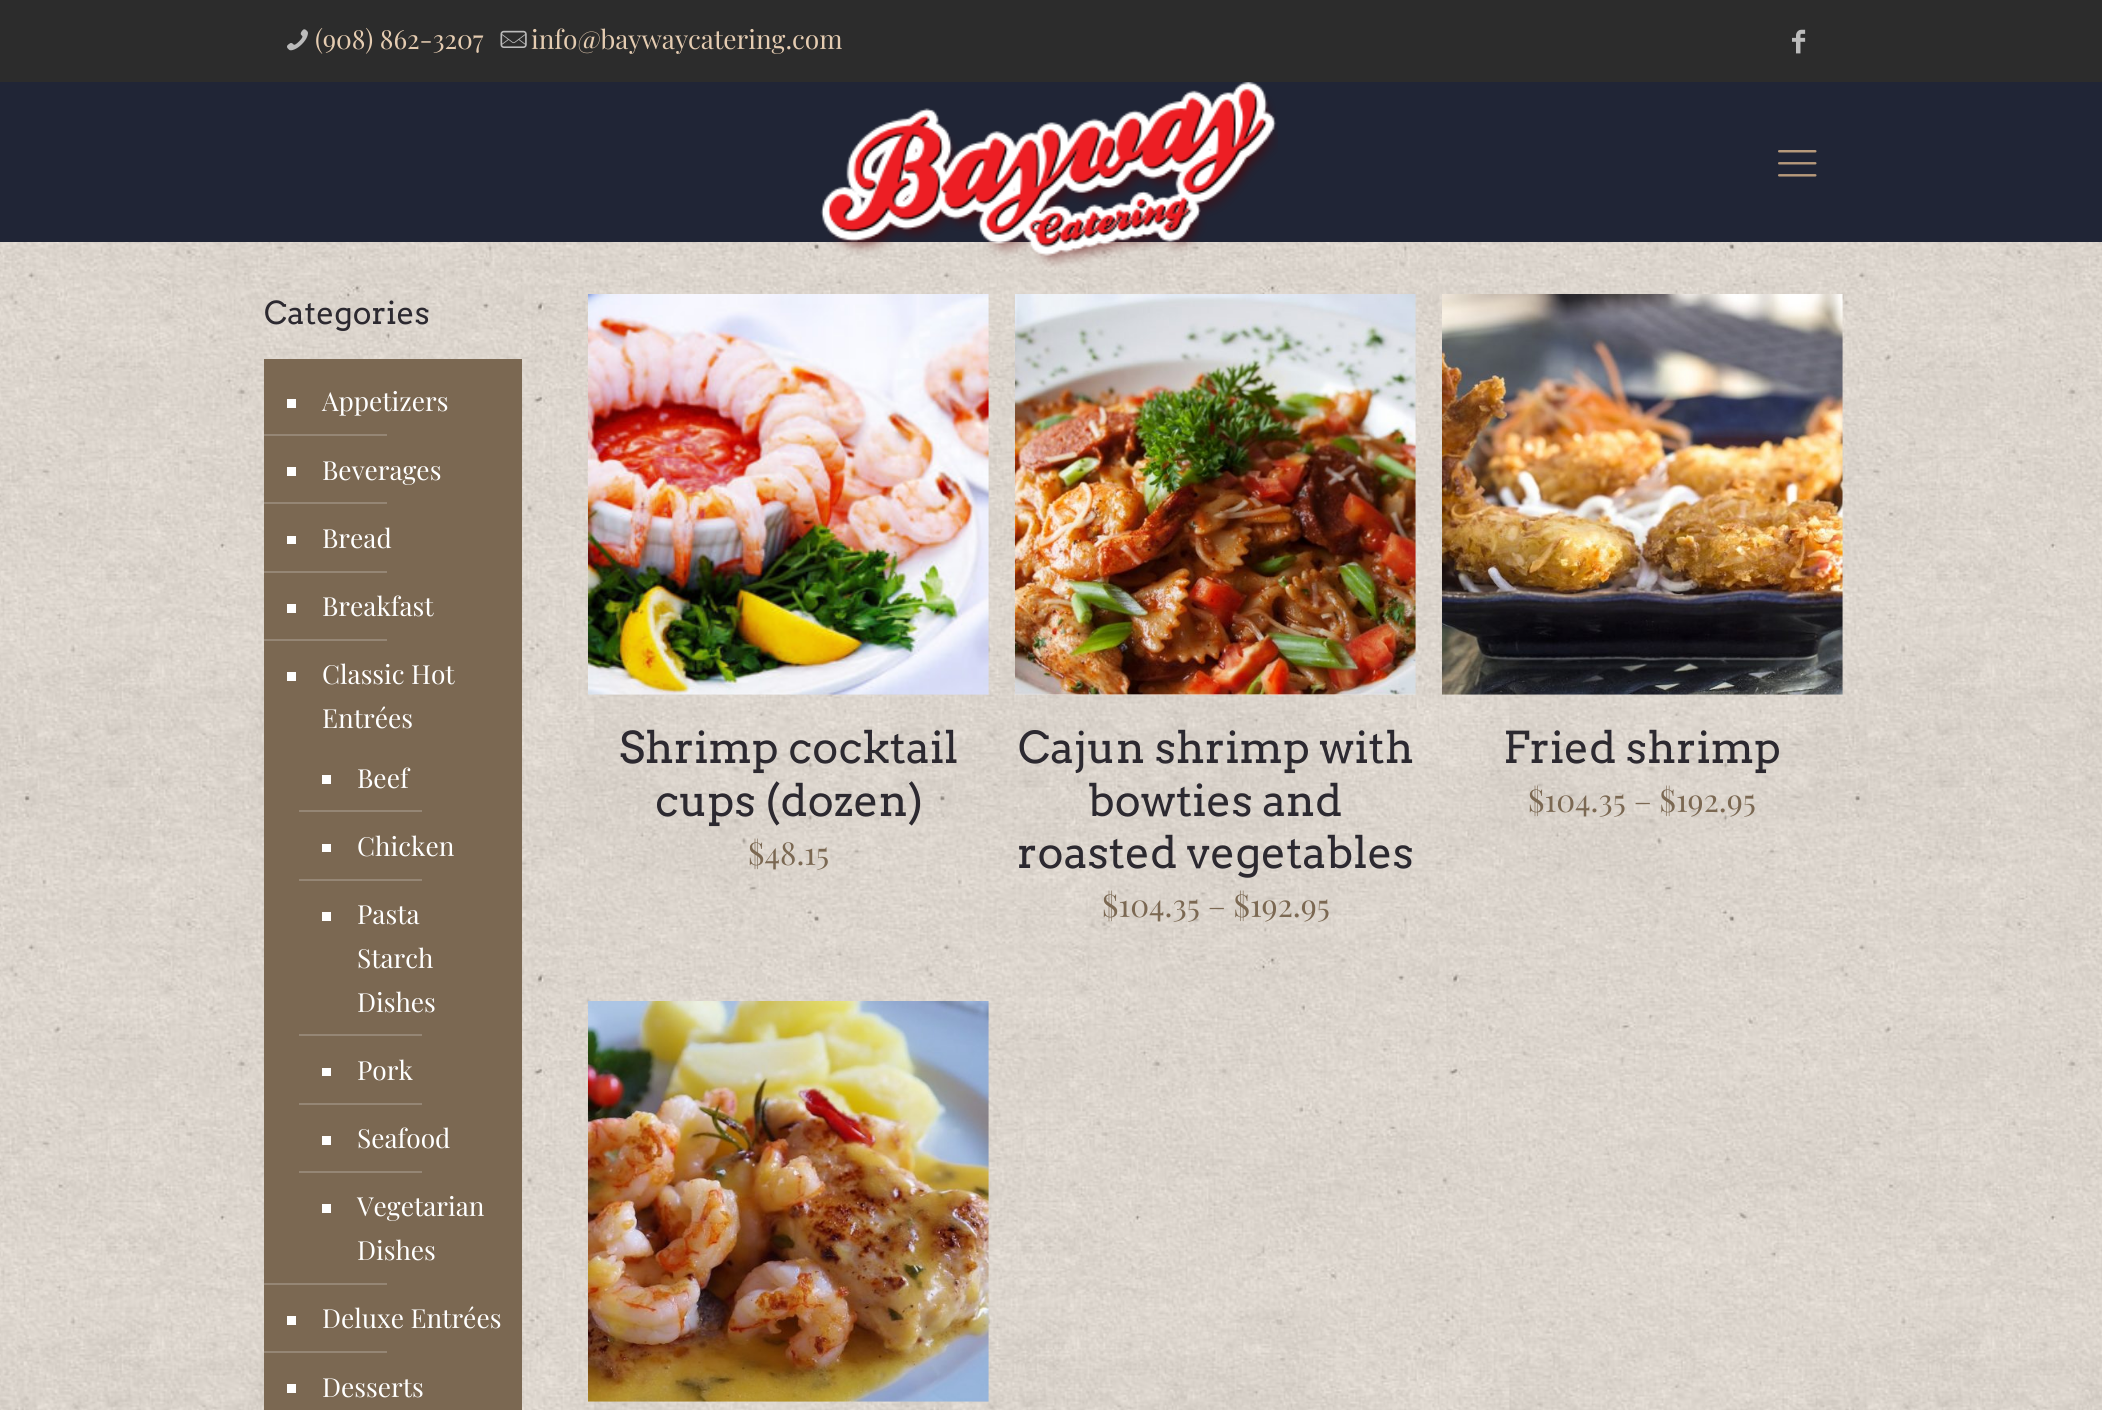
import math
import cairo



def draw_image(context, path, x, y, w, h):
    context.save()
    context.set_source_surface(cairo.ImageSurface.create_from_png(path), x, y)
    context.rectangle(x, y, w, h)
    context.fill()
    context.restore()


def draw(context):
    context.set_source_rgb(1, 1, 1)
    context.paint()
    draw_image(context, "images/1.png", 0, 242, 2102, 1168)
    context.set_source_rgb(44 / 255, 44 / 255, 44 / 255)
    context.rectangle(0, 0, 2102, 82)
    context.fill()
    draw_image(context, "images/2.png", 287, 29, 21, 22)
    draw_image(context, "images/3.png", 500, 30, 27, 18)
    draw_image(context, "images/4.png", 1792, 29, 14, 25)
    context.set_source_rgb(32 / 255, 37 / 255, 54 / 255)
    context.rectangle(0, 82, 2102, 160)
    context.fill()
    draw_image(context, "images/5.png", 820, 82, 458, 186)
    draw_image(context, "images/6.png", 1778, 150, 39, 27)
    context.set_source_rgb(123 / 255, 104 / 255, 82 / 255)
    context.rectangle(264, 359, 258, 1051)
    context.fill()
    context.set_source_rgb(1, 1, 1)
    context.rectangle(287, 399, 9, 9)
    context.fill()
    context.set_source_rgb(149 / 255, 134 / 255, 117 / 255)
    context.rectangle(264, 434, 123, 2)
    context.fill()
    context.set_source_rgb(1, 1, 1)
    context.rectangle(287, 467, 9, 9)
    context.fill()
    context.set_source_rgb(149 / 255, 134 / 255, 117 / 255)
    context.rectangle(264, 502, 123, 2)
    context.fill()
    context.set_source_rgb(1, 1, 1)
    context.rectangle(287, 536, 9, 8)
    context.fill()
    context.set_source_rgb(149 / 255, 134 / 255, 117 / 255)
    context.rectangle(264, 571, 123, 2)
    context.fill()
    context.set_source_rgb(1, 1, 1)
    context.rectangle(287, 604, 9, 9)
    context.fill()
    context.set_source_rgb(149 / 255, 134 / 255, 117 / 255)
    context.rectangle(264, 639, 123, 2)
    context.fill()
    context.set_source_rgb(1, 1, 1)
    context.rectangle(287, 672, 9, 9)
    context.fill()
    context.rectangle(322, 775, 9, 9)
    context.fill()
    context.set_source_rgb(149 / 255, 134 / 255, 117 / 255)
    context.rectangle(299, 810, 123, 2)
    context.fill()
    context.set_source_rgb(1, 1, 1)
    context.rectangle(322, 844, 9, 8)
    context.fill()
    context.set_source_rgb(149 / 255, 134 / 255, 117 / 255)
    context.rectangle(299, 879, 123, 2)
    context.fill()
    context.set_source_rgb(1, 1, 1)
    context.rectangle(322, 912, 9, 9)
    context.fill()
    context.set_source_rgb(149 / 255, 134 / 255, 117 / 255)
    context.rectangle(299, 1034, 123, 2)
    context.fill()
    context.set_source_rgb(1, 1, 1)
    context.rectangle(322, 1068, 9, 8)
    context.fill()
    context.set_source_rgb(149 / 255, 134 / 255, 117 / 255)
    context.rectangle(299, 1103, 123, 2)
    context.fill()
    context.set_source_rgb(1, 1, 1)
    context.rectangle(322, 1136, 9, 9)
    context.fill()
    context.set_source_rgb(149 / 255, 134 / 255, 117 / 255)
    context.rectangle(299, 1171, 123, 2)
    context.fill()
    context.set_source_rgb(1, 1, 1)
    context.rectangle(322, 1204, 9, 9)
    context.fill()
    context.set_source_rgb(149 / 255, 134 / 255, 117 / 255)
    context.rectangle(264, 1283, 123, 2)
    context.fill()
    context.set_source_rgb(1, 1, 1)
    context.rectangle(287, 1316, 9, 9)
    context.fill()
    context.set_source_rgb(149 / 255, 134 / 255, 117 / 255)
    context.rectangle(264, 1351, 123, 2)
    context.fill()
    context.set_source_rgb(1, 1, 1)
    context.rectangle(287, 1384, 9, 9)
    context.fill()
    draw_image(context, "images/7.png", 588, 294, 401, 401)
    draw_image(context, "images/8.png", 1015, 294, 401, 401)
    draw_image(context, "images/9.png", 1442, 294, 401, 401)
    draw_image(context, "images/10.png", 588, 1001, 401, 401)
    context.select_font_face("Playfair Display")
    context.set_font_size(26.25)
    context.set_source_rgb(229 / 255, 204 / 255, 177 / 255)
    context.move_to(315, 49)
    context.show_text("(908) 862-3207")
    context.move_to(531, 49)
    context.show_text("info@baywaycatering.com")
    context.select_font_face("Arvo")
    context.set_font_size(31.5)
    context.set_source_rgb(44 / 255, 41 / 255, 48 / 255)
    context.move_to(264, 324)
    context.show_text("Categories")
    context.select_font_face("Playfair Display")
    context.set_font_size(26.25)
    context.set_source_rgb(1, 1, 1)
    context.move_to(322, 411)
    context.show_text("Appetizers")
    context.move_to(322, 480)
    context.show_text("Beverages")
    context.move_to(322, 548)
    context.show_text("Bread")
    context.move_to(322, 616)
    context.show_text("Breakfast")
    context.move_to(322, 684)
    context.show_text("Classic Hot")
    context.move_to(322, 728)
    context.show_text("Entrées")
    context.move_to(357, 788)
    context.show_text("Beef")
    context.move_to(357, 856)
    context.show_text("Chicken")
    context.move_to(357, 924)
    context.show_text("Pasta")
    context.move_to(357, 968)
    context.show_text("Starch")
    context.move_to(357, 1012)
    context.show_text("Dishes")
    context.move_to(357, 1080)
    context.show_text("Pork")
    context.move_to(357, 1148)
    context.show_text("Seafood")
    context.move_to(357, 1216)
    context.show_text("Vegetarian")
    context.move_to(357, 1260)
    context.show_text("Dishes")
    context.move_to(322, 1328)
    context.show_text("Deluxe Entrées")
    context.move_to(322, 1397)
    context.show_text("Desserts")
    context.select_font_face("Arvo")
    context.set_font_size(43.75)
    context.set_source_rgb(44 / 255, 41 / 255, 48 / 255)
    context.move_to(619, 763)
    context.show_text("Shrimp cocktail")
    context.move_to(655, 816)
    context.show_text("cups (dozen)")
    context.select_font_face("Playfair Display")
    context.set_font_size(31.5)
    context.set_source_rgb(123 / 255, 104 / 255, 82 / 255)
    context.move_to(748, 865)
    context.show_text("$48.15")
    context.select_font_face("Arvo")
    context.set_font_size(43.75)
    context.set_source_rgb(44 / 255, 41 / 255, 48 / 255)
    context.move_to(1018, 763)
    context.show_text("Cajun shrimp with")
    context.move_to(1088, 816)
    context.show_text("bowties and")
    context.move_to(1017, 868)
    context.show_text("roasted vegetables")
    context.select_font_face("Playfair Display")
    context.set_font_size(31.5)
    context.set_source_rgb(123 / 255, 104 / 255, 82 / 255)
    context.move_to(1102, 917)
    context.show_text("$104.35 – $192.95")
    context.select_font_face("Arvo")
    context.set_font_size(43.75)
    context.set_source_rgb(44 / 255, 41 / 255, 48 / 255)
    context.move_to(1503, 763)
    context.show_text("Fried shrimp")
    context.select_font_face("Playfair Display")
    context.set_font_size(31.5)
    context.set_source_rgb(123 / 255, 104 / 255, 82 / 255)
    context.move_to(1528, 812)
    context.show_text("$104.35 – $192.95")


surface = cairo.ImageSurface(cairo.Format.RGB24, 2102, 1410)
context = cairo.Context(surface)
options = cairo.FontOptions()
options.set_hint_metrics(cairo.HintMetrics.OFF)
options.set_hint_style(cairo.HintStyle.NONE)
context.set_font_options(options)
context.set_miter_limit(4)
draw(context)
surface.write_to_png("out.png")
